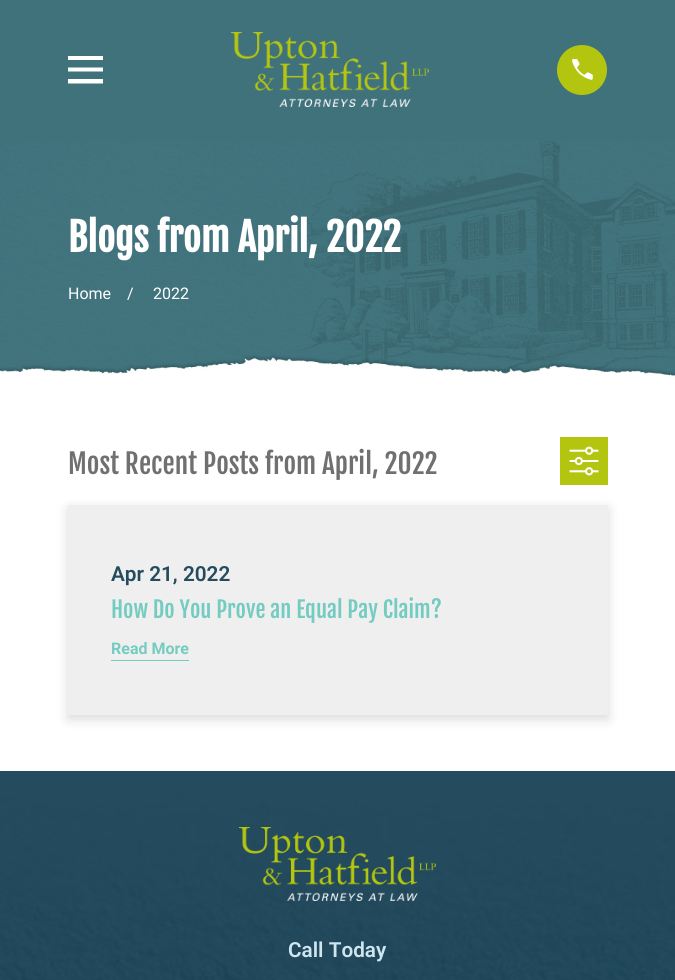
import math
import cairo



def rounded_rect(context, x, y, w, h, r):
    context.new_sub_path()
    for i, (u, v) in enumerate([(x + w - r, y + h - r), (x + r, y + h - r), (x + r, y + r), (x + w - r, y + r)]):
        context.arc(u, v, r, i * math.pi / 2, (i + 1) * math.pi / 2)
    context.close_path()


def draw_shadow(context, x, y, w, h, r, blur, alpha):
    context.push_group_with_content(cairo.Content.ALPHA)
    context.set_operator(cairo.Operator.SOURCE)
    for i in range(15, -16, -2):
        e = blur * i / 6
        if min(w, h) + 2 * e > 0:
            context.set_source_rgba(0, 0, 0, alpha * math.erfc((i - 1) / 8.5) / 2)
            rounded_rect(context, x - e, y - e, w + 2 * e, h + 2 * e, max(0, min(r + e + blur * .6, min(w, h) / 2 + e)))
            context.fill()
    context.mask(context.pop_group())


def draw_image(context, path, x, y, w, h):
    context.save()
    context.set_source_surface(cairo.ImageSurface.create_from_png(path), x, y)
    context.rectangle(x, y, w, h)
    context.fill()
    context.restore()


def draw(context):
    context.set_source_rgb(1, 1, 1)
    context.paint()
    context.set_source_rgb(64 / 255, 114 / 255, 124 / 255)
    context.rectangle(0, 0, 675, 141)
    context.fill()
    context.set_source_rgb(1, 1, 1)
    context.new_path()
    context.move_to(68, 56)
    context.line_to(68, 60)
    context.line_to(103, 60)
    context.line_to(103, 56)
    context.close_path()
    context.move_to(68, 67.5)
    context.line_to(68, 71.5)
    context.line_to(103, 71.5)
    context.line_to(103, 67.5)
    context.close_path()
    context.move_to(68, 79)
    context.line_to(68, 83.5)
    context.line_to(103, 83.5)
    context.line_to(103, 79)
    context.close_path()
    context.fill()
    draw_image(context, "images/1.png", 231, 32, 198, 75)
    context.set_source_rgb(180 / 255, 197 / 255, 15 / 255)
    context.arc(582, 70, 25, 0, 2 * math.pi)
    context.fill()
    draw_image(context, "images/2.png", 572, 59, 21, 21)
    draw_image(context, "images/3.png", 0, 141, 675, 240)
    context.rectangle(560, 437, 48, 48)
    context.fill()
    draw_image(context, "images/4.png", 569, 446, 30, 30)
    context.set_source_rgb(0, 0, 0)
    draw_shadow(context, 68, 509, 540, 210, 0, 6, 0.15)
    context.set_source_rgb(239 / 255, 239 / 255, 239 / 255)
    context.rectangle(68, 505, 540, 210)
    context.fill()
    context.set_source_rgb(116 / 255, 204 / 255, 193 / 255)
    context.rectangle(111, 660, 78, 1)
    context.fill()
    draw_image(context, "images/5.png", 0, 771, 675, 209)
    draw_image(context, "images/6.png", 239, 827, 197, 74)
    context.select_font_face("Fjalla One", cairo.FontSlant.NORMAL, cairo.FontWeight.BOLD)
    context.set_font_size(38.5)
    context.set_source_rgb(1, 1, 1)
    context.move_to(68, 252)
    context.show_text("Blogs from April, 2022")
    context.select_font_face("Roboto")
    context.set_font_size(16)
    context.move_to(68, 299)
    context.show_text("Home")
    context.move_to(127, 299)
    context.show_text("/")
    context.move_to(153, 299)
    context.show_text("2022")
    context.select_font_face("Fjalla One")
    context.set_font_size(27.25)
    context.set_source_rgb(112 / 255, 112 / 255, 112 / 255)
    context.move_to(68, 474)
    context.show_text("Most Recent Posts from April, 2022")
    context.select_font_face("Roboto SemiBold")
    context.set_font_size(20.75)
    context.set_source_rgb(36 / 255, 76 / 255, 94 / 255)
    context.move_to(111, 581)
    context.show_text("Apr 21, 2022")
    context.select_font_face("Fjalla One")
    context.set_font_size(22.4)
    context.set_source_rgb(116 / 255, 204 / 255, 193 / 255)
    context.move_to(111, 618)
    context.show_text("How Do You Prove an Equal Pay Claim?")
    context.select_font_face("Roboto", cairo.FontSlant.NORMAL, cairo.FontWeight.BOLD)
    context.set_font_size(16)
    context.move_to(111, 654)
    context.show_text("Read More")
    context.select_font_face("Roboto SemiBold")
    context.set_font_size(20.75)
    context.set_source_rgb(206 / 255, 230 / 255, 239 / 255)
    context.move_to(288, 957)
    context.show_text("Call Today")


surface = cairo.ImageSurface(cairo.Format.RGB24, 675, 980)
context = cairo.Context(surface)
options = cairo.FontOptions()
options.set_hint_metrics(cairo.HintMetrics.OFF)
options.set_hint_style(cairo.HintStyle.NONE)
context.set_font_options(options)
context.set_miter_limit(4)
draw(context)
surface.write_to_png("out.png")
